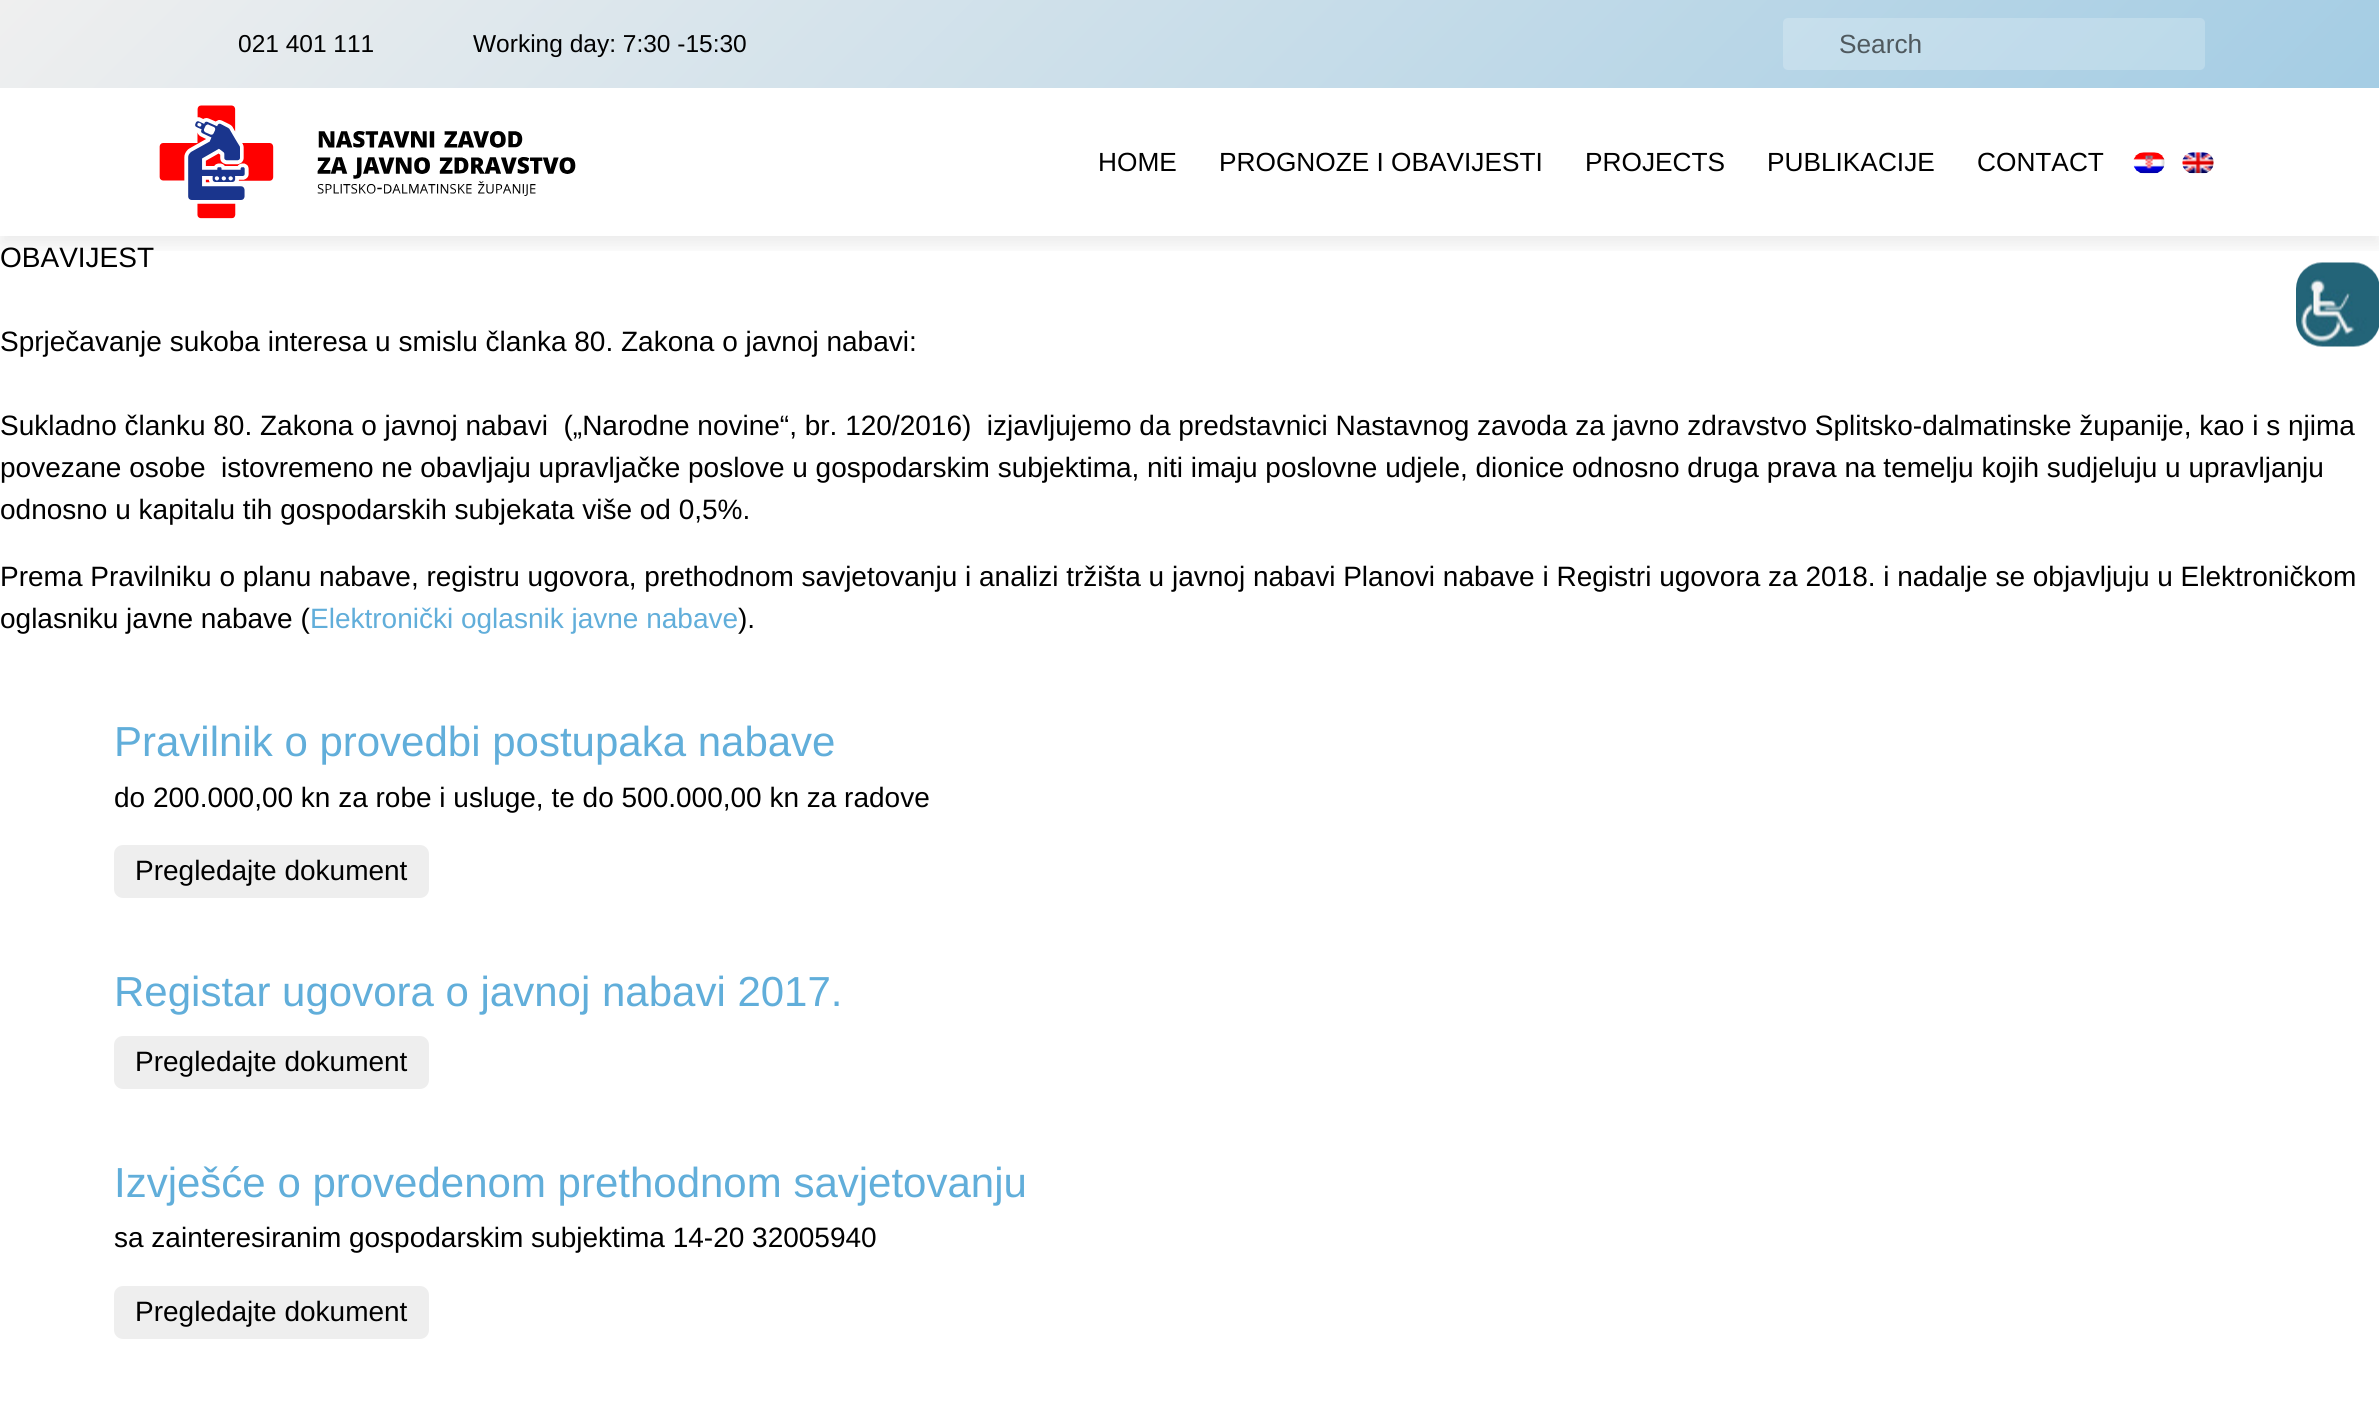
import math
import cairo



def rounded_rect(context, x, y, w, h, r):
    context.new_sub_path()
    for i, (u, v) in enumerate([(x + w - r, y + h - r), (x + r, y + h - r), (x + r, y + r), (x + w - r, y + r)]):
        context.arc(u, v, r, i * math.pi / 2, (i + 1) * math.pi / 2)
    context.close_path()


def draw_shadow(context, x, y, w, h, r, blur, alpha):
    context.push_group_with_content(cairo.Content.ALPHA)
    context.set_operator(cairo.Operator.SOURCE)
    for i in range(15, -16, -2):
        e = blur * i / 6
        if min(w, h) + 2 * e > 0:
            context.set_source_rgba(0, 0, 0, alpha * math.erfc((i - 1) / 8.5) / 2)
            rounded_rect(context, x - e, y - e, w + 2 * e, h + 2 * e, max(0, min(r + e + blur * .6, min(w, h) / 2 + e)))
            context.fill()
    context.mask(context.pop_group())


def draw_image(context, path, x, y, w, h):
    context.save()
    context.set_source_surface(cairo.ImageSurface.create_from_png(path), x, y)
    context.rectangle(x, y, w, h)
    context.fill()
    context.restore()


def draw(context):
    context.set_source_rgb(1, 1, 1)
    context.paint()
    gradient = cairo.LinearGradient(573, -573, 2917, 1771)
    gradient.add_color_stop_rgba(0, 239 / 255, 239 / 255, 239 / 255, 1)
    gradient.add_color_stop_rgba(1, 97 / 255, 174 / 255, 218 / 255, 1)
    context.set_source(gradient)
    context.rectangle(0, 0, 2379, 88)
    context.fill()
    context.set_source_rgba(1, 1, 1, 0.21)
    rounded_rect(context, 1783, 18, 422, 52, 5)
    context.fill()
    context.save()
    context.rectangle(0, 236, 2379, 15)
    context.clip()
    context.set_source_rgb(0, 0, 0)
    draw_shadow(context, 0, 96, 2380, 149, 0, 9, 0.08)
    context.restore()
    draw_image(context, "images/1.png", 159, 105, 417, 114)
    draw_image(context, "images/2.png", 2133, 152, 32, 22)
    draw_image(context, "images/3.png", 2182, 152, 32, 22)
    draw_image(context, "images/4.png", 2296, 262, 83, 85)
    context.set_source_rgb(238 / 255, 238 / 255, 238 / 255)
    rounded_rect(context, 114, 845, 315, 53, 9)
    context.fill()
    rounded_rect(context, 114, 1036, 315, 53, 9)
    context.fill()
    rounded_rect(context, 114, 1286, 315, 53, 9)
    context.fill()
    context.select_font_face("Liberation Sans")
    context.set_font_size(24.5)
    context.set_source_rgb(0, 0, 0)
    context.move_to(238, 52)
    context.show_text("021 401 111")
    context.move_to(473, 52)
    context.show_text("Working day: 7:30 -15:30")
    context.set_font_size(26.25)
    context.set_source_rgb(79 / 255, 89 / 255, 94 / 255)
    context.move_to(1839, 53)
    context.show_text("Search")
    context.set_source_rgb(0, 0, 0)
    context.move_to(1098, 171)
    context.show_text("HOME")
    context.move_to(1219, 171)
    context.show_text("PROGNOZE I OBAVIJESTI")
    context.move_to(1585, 171)
    context.show_text("PROJECTS")
    context.move_to(1767, 171)
    context.show_text("PUBLIKACIJE")
    context.move_to(1977, 171)
    context.show_text("CONTACT")
    context.set_font_size(28)
    context.move_to(0, 267)
    context.show_text("OBAVIJEST")
    context.move_to(0, 351)
    context.show_text("Sprječavanje sukoba interesa u smislu članka 80. Zakona o javnoj nabavi:")
    context.move_to(0, 435)
    context.show_text("Sukladno članku 80. Zakona o javnoj nabavi  („Narodne novine“, br. 120/2016)  izjavljujemo da predstavnici Nastavnog zavoda za javno zdravstvo Splitsko-dalmatinske županije, kao i s njima")
    context.move_to(0, 477)
    context.show_text("povezane osobe  istovremeno ne obavljaju upravljačke poslove u gospodarskim subjektima, niti imaju poslovne udjele, dionice odnosno druga prava na temelju kojih sudjeluju u upravljanju")
    context.move_to(0, 519)
    context.show_text("odnosno u kapitalu tih gospodarskih subjekata više od 0,5%.")
    context.move_to(0, 586)
    context.show_text("Prema Pravilniku o planu nabave, registru ugovora, prethodnom savjetovanju i analizi tržišta u javnoj nabavi Planovi nabave i Registri ugovora za 2018. i nadalje se objavljuju u Elektroničkom")
    context.move_to(0, 628)
    context.show_text("oglasniku javne nabave (")
    context.set_source_rgb(97 / 255, 174 / 255, 218 / 255)
    context.move_to(310, 628)
    context.show_text("Elektronički oglasnik javne nabave")
    context.set_source_rgb(0, 0, 0)
    context.move_to(738, 628)
    context.show_text(").")
    context.set_font_size(42)
    context.set_source_rgb(97 / 255, 174 / 255, 218 / 255)
    context.move_to(114, 756)
    context.show_text("Pravilnik o provedbi postupaka nabave")
    context.set_font_size(28)
    context.set_source_rgb(0, 0, 0)
    context.move_to(114, 807)
    context.show_text("do 200.000,00 kn za robe i usluge, te do 500.000,00 kn za radove")
    context.move_to(135, 880)
    context.show_text("Pregledajte dokument")
    context.set_font_size(42)
    context.set_source_rgb(97 / 255, 174 / 255, 218 / 255)
    context.move_to(114, 1006)
    context.show_text("Registar ugovora o javnoj nabavi 2017.")
    context.set_font_size(28)
    context.set_source_rgb(0, 0, 0)
    context.move_to(135, 1071)
    context.show_text("Pregledajte dokument")
    context.set_font_size(42)
    context.set_source_rgb(97 / 255, 174 / 255, 218 / 255)
    context.move_to(114, 1197)
    context.show_text("Izvješće o provedenom prethodnom savjetovanju")
    context.set_font_size(28)
    context.set_source_rgb(0, 0, 0)
    context.move_to(114, 1247)
    context.show_text("sa zainteresiranim gospodarskim subjektima 14-20 32005940")
    context.move_to(135, 1321)
    context.show_text("Pregledajte dokument")


surface = cairo.ImageSurface(cairo.Format.RGB24, 2379, 1405)
context = cairo.Context(surface)
options = cairo.FontOptions()
options.set_hint_metrics(cairo.HintMetrics.OFF)
options.set_hint_style(cairo.HintStyle.NONE)
context.set_font_options(options)
context.set_miter_limit(4)
draw(context)
surface.write_to_png("out.png")
